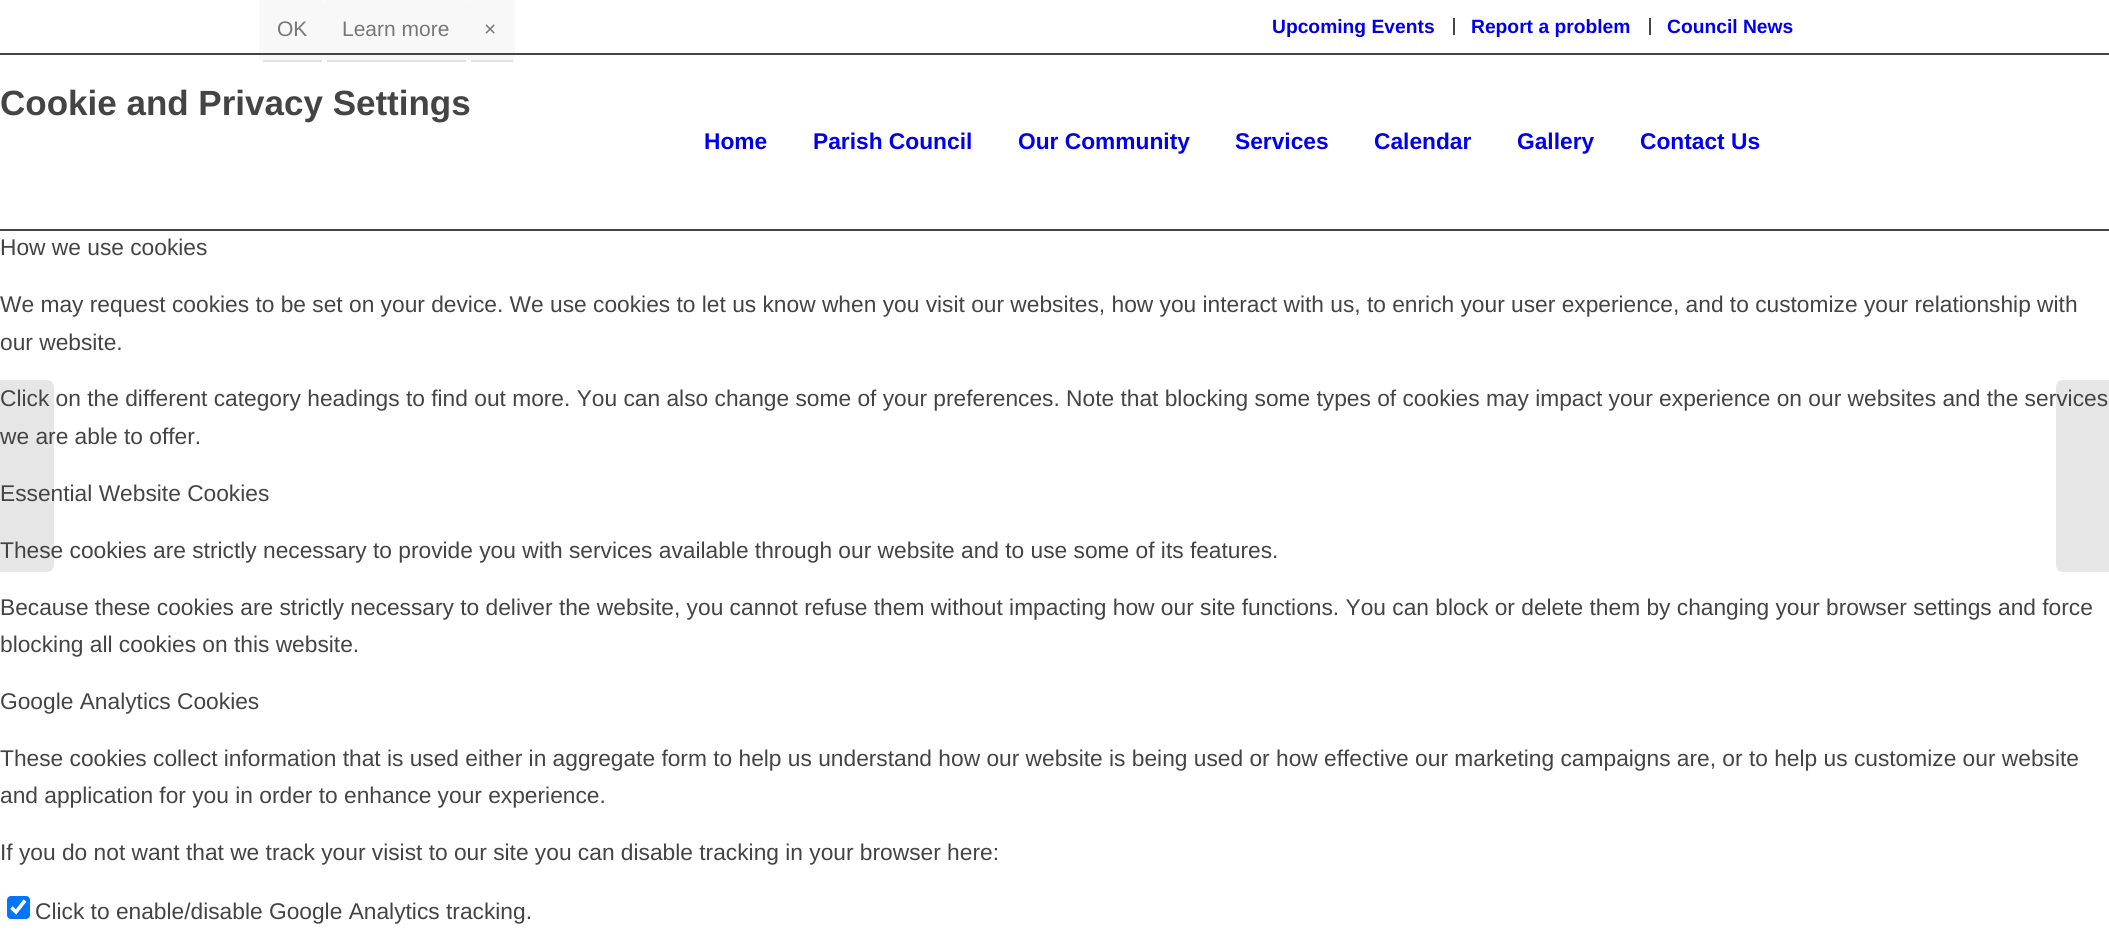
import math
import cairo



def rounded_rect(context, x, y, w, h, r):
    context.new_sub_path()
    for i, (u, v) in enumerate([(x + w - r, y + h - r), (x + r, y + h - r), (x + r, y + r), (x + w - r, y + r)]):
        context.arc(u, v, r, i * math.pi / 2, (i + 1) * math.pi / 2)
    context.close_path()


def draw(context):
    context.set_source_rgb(1, 1, 1)
    context.paint()
    context.set_source_rgb(248 / 255, 248 / 255, 248 / 255)
    rounded_rect(context, 259, -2, 65, 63, 5)
    context.fill()
    context.set_source_rgb(225 / 255, 225 / 255, 225 / 255)
    context.rectangle(263, 60, 59, 2)
    context.fill()
    context.set_source_rgb(248 / 255, 248 / 255, 248 / 255)
    rounded_rect(context, 324, -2, 143, 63, 5)
    context.fill()
    context.set_source_rgb(225 / 255, 225 / 255, 225 / 255)
    context.rectangle(327, 60, 139, 2)
    context.fill()
    context.set_source_rgb(248 / 255, 248 / 255, 248 / 255)
    rounded_rect(context, 467, -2, 48, 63, 5)
    context.fill()
    context.set_source_rgb(225 / 255, 225 / 255, 225 / 255)
    context.rectangle(471, 60, 42, 2)
    context.fill()
    context.set_source_rgb(68 / 255, 68 / 255, 68 / 255)
    context.rectangle(1453, 18, 2, 17)
    context.fill()
    context.rectangle(1649, 18, 2, 17)
    context.fill()
    context.rectangle(0, 53, 2109, 2)
    context.fill()
    context.rectangle(0, 229, 2109, 2)
    context.fill()
    context.set_source_rgba(0, 0, 0, 0.1)
    context.new_path()
    context.move_to(0, 380)
    context.line_to(47, 380)
    context.curve_to(51, 380, 54, 383, 54, 387)
    context.line_to(54, 565)
    context.curve_to(54, 569, 51, 572, 47, 572)
    context.line_to(0, 572)
    context.close_path()
    context.fill()
    context.new_path()
    context.move_to(2063, 380)
    context.line_to(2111, 380)
    context.line_to(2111, 572)
    context.line_to(2063, 572)
    context.curve_to(2059, 572, 2056, 569, 2056, 565)
    context.line_to(2056, 387)
    context.curve_to(2056, 383, 2059, 380, 2063, 380)
    context.close_path()
    context.fill()
    context.set_source_rgb(0, 117 / 255, 1)
    rounded_rect(context, 7, 896, 23, 23, 4)
    context.fill()
    context.new_path()
    context.move_to(11.5, 907.5)
    context.line_to(16, 912)
    context.line_to(25, 900.5)
    context.set_source_rgb(1, 1, 1)
    context.set_line_width(3.6)
    context.stroke()
    context.select_font_face("Liberation Sans")
    context.set_font_size(21)
    context.set_source_rgb(119 / 255, 119 / 255, 119 / 255)
    context.move_to(277, 36)
    context.show_text("OK")
    context.move_to(342, 36)
    context.show_text("Learn more")
    context.move_to(484, 36)
    context.show_text("×")
    context.select_font_face("Liberation Sans", cairo.FontSlant.NORMAL, cairo.FontWeight.BOLD)
    context.set_font_size(19.25)
    context.set_source_rgb(0, 0, 238 / 255)
    context.move_to(1272, 33)
    context.show_text("Upcoming Events")
    context.move_to(1471, 33)
    context.show_text("Report a problem")
    context.move_to(1667, 33)
    context.show_text("Council News")
    context.set_font_size(22.75)
    context.move_to(704, 149)
    context.show_text("Home")
    context.move_to(813, 149)
    context.show_text("Parish Council")
    context.move_to(1018, 149)
    context.show_text("Our Community")
    context.move_to(1235, 149)
    context.show_text("Services")
    context.move_to(1374, 149)
    context.show_text("Calendar")
    context.move_to(1517, 149)
    context.show_text("Gallery")
    context.move_to(1640, 149)
    context.show_text("Contact Us")
    context.set_font_size(35)
    context.set_source_rgb(68 / 255, 68 / 255, 68 / 255)
    context.move_to(0, 115)
    context.show_text("Cookie and Privacy Settings")
    context.select_font_face("Liberation Sans")
    context.set_font_size(22.75)
    context.move_to(0, 255)
    context.show_text("How we use cookies")
    context.move_to(0, 312)
    context.show_text("We may request cookies to be set on your device. We use cookies to let us know when you visit our websites, how you interact with us, to enrich your user experience, and to customize your relationship with")
    context.move_to(0, 350)
    context.show_text("our website.")
    context.move_to(0, 406)
    context.show_text("Click on the different category headings to find out more. You can also change some of your preferences. Note that blocking some types of cookies may impact your experience on our websites and the services")
    context.move_to(0, 444)
    context.show_text("we are able to offer.")
    context.move_to(0, 501)
    context.show_text("Essential Website Cookies")
    context.move_to(0, 558)
    context.show_text("These cookies are strictly necessary to provide you with services available through our website and to use some of its features.")
    context.move_to(0, 615)
    context.show_text("Because these cookies are strictly necessary to deliver the website, you cannot refuse them without impacting how our site functions. You can block or delete them by changing your browser settings and force")
    context.move_to(0, 652)
    context.show_text("blocking all cookies on this website.")
    context.move_to(0, 709)
    context.show_text("Google Analytics Cookies")
    context.move_to(0, 766)
    context.show_text("These cookies collect information that is used either in aggregate form to help us understand how our website is being used or how effective our marketing campaigns are, or to help us customize our website")
    context.move_to(0, 803)
    context.show_text("and application for you in order to enhance your experience.")
    context.move_to(0, 860)
    context.show_text("If you do not want that we track your visist to our site you can disable tracking in your browser here:")
    context.move_to(35, 919)
    context.show_text("Click to enable/disable Google Analytics tracking.")


surface = cairo.ImageSurface(cairo.Format.RGB24, 2109, 949)
context = cairo.Context(surface)
options = cairo.FontOptions()
options.set_hint_metrics(cairo.HintMetrics.OFF)
options.set_hint_style(cairo.HintStyle.NONE)
context.set_font_options(options)
context.set_miter_limit(4)
draw(context)
surface.write_to_png("out.png")
